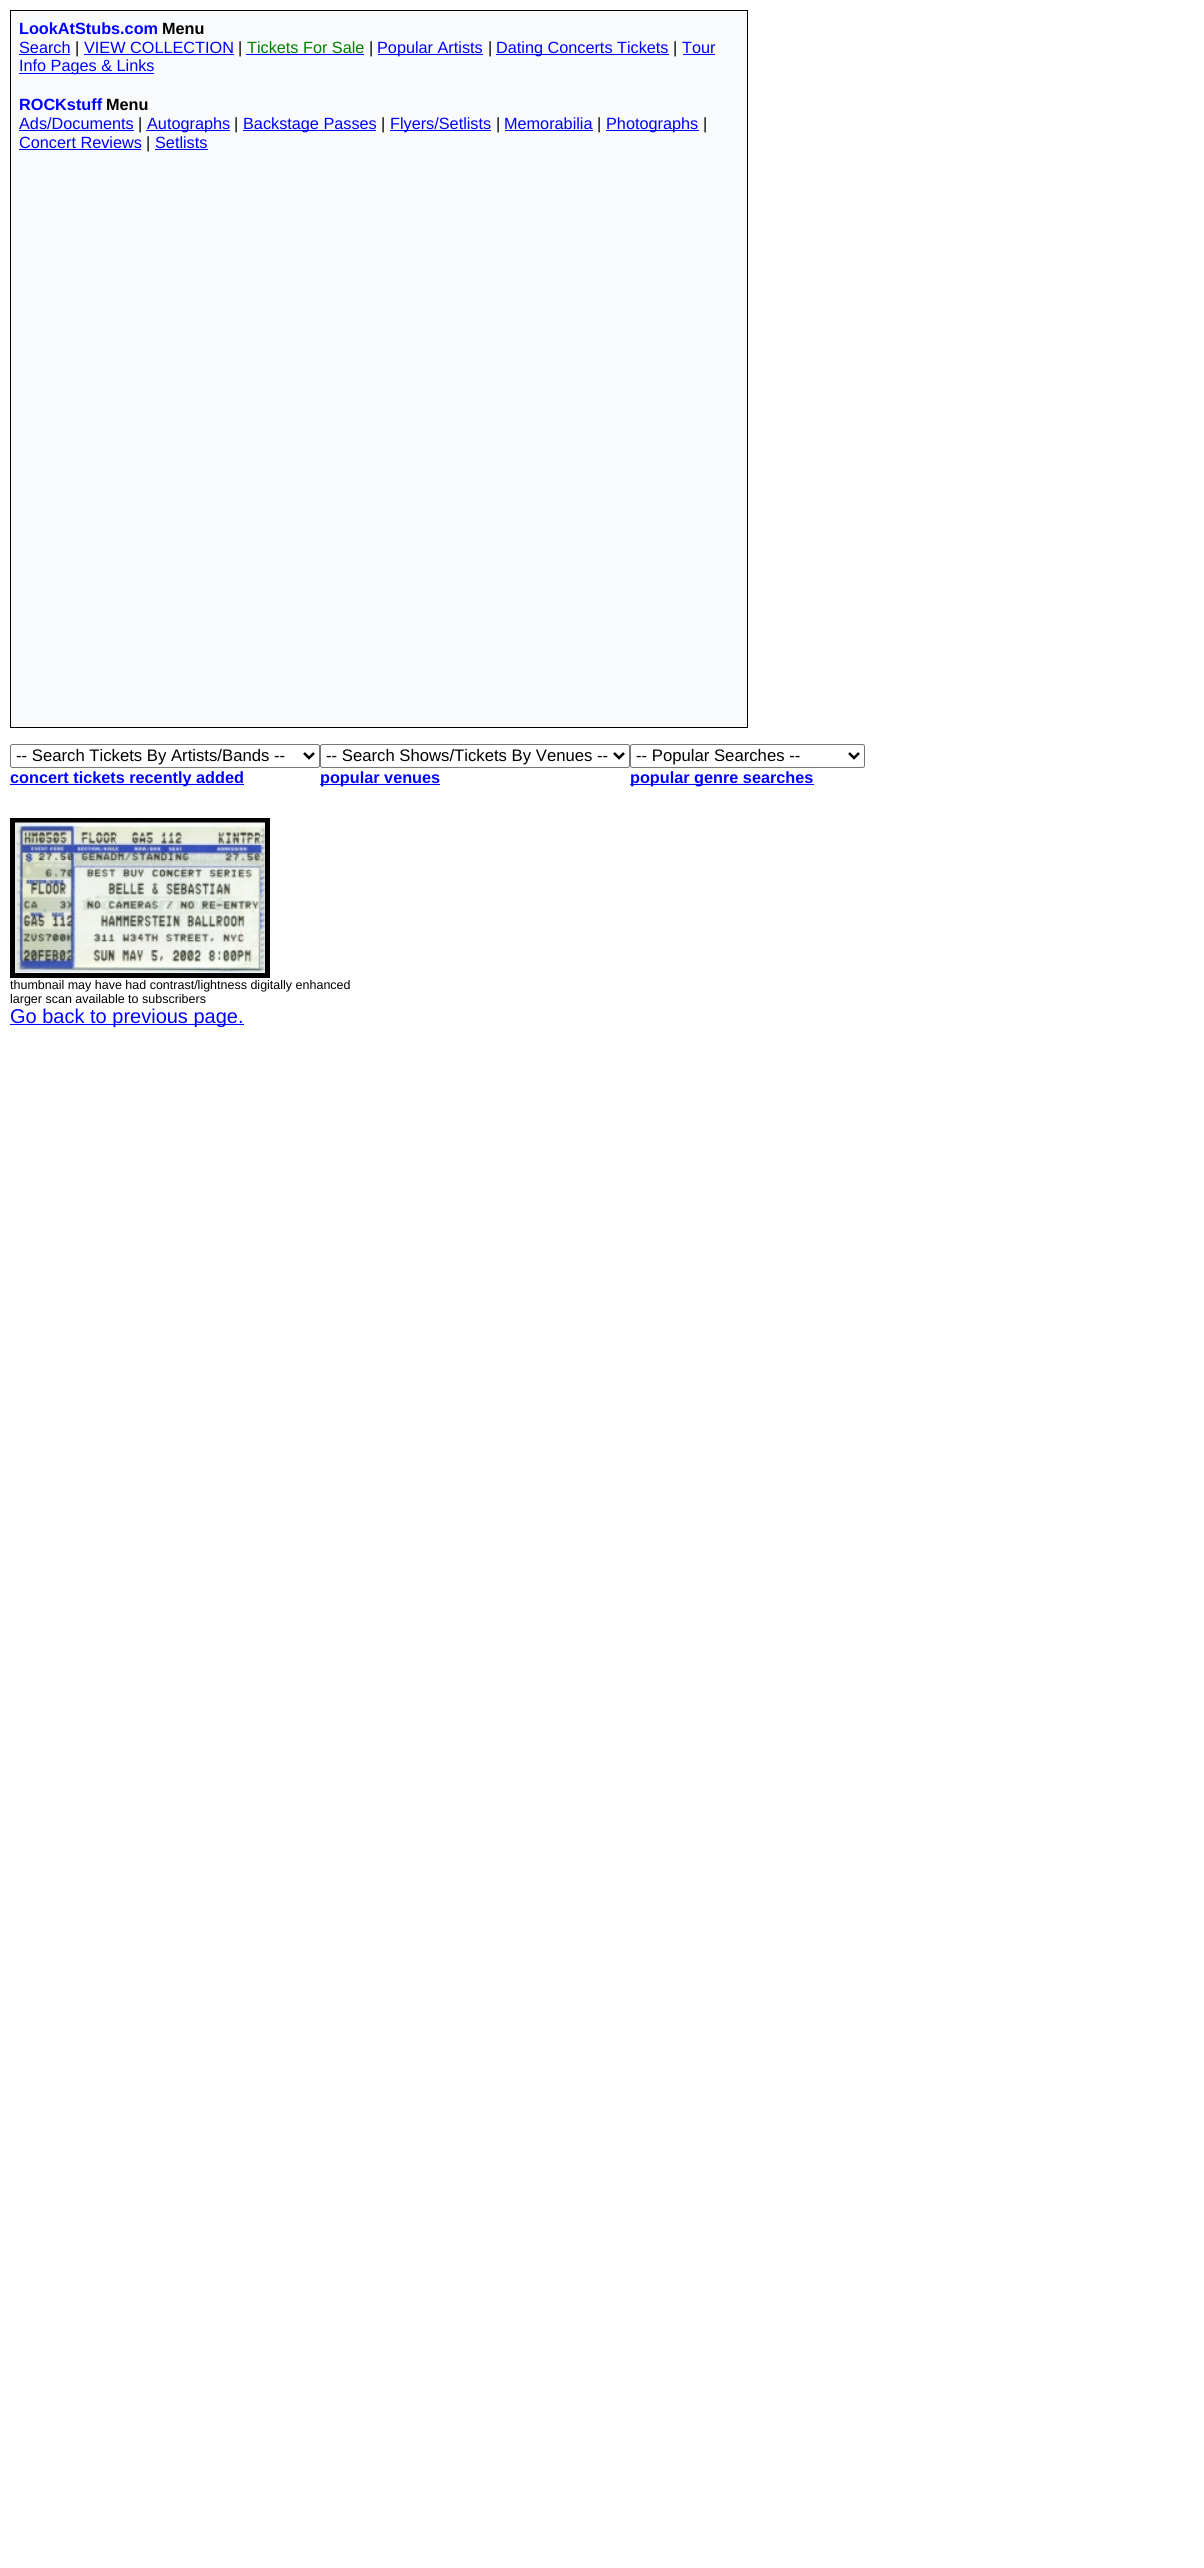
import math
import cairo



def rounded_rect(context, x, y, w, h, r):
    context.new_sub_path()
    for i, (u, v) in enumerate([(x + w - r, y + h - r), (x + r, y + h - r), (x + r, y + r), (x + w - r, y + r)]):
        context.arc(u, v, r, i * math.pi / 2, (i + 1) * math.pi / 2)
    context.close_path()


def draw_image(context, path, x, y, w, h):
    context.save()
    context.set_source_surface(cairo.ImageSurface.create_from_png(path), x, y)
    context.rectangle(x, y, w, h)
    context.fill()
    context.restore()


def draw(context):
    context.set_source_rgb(1, 1, 1)
    context.paint()
    context.set_source_rgb(249 / 255, 250 / 255, 251 / 255)
    context.rectangle(10.5, 10.5, 737, 717)
    context.fill_preserve()
    context.set_source_rgb(0, 0, 0)
    context.set_line_width(1)
    context.stroke()
    context.set_source_rgb(0, 0, 1)
    context.rectangle(19, 54, 51, 1)
    context.fill()
    context.rectangle(84, 54, 150, 1)
    context.fill()
    context.rectangle(246, 54, 118, 1)
    context.fill()
    context.rectangle(378, 54, 105, 1)
    context.fill()
    context.rectangle(496, 54, 173, 1)
    context.fill()
    context.rectangle(683, 54, 32, 1)
    context.fill()
    context.rectangle(19, 73, 135, 1)
    context.fill()
    context.rectangle(19, 130, 115, 1)
    context.fill()
    context.rectangle(146, 130, 84, 1)
    context.fill()
    context.rectangle(243, 130, 133, 1)
    context.fill()
    context.rectangle(390, 130, 101, 1)
    context.fill()
    context.rectangle(505, 130, 88, 1)
    context.fill()
    context.rectangle(606, 130, 93, 1)
    context.fill()
    context.rectangle(19, 149, 122, 1)
    context.fill()
    context.rectangle(155, 149, 53, 1)
    context.fill()
    rounded_rect(context, 10.5, 744.5, 309, 23, 2)
    context.set_source_rgb(118 / 255, 118 / 255, 118 / 255)
    context.stroke()
    context.new_path()
    context.move_to(304, 753)
    context.line_to(309, 758)
    context.line_to(314, 753)
    context.set_source_rgb(0, 0, 0)
    context.set_line_width(2.5)
    context.stroke()
    context.set_source_rgb(0, 0, 1)
    context.rectangle(10, 784, 234, 1)
    context.fill()
    rounded_rect(context, 320.5, 744.5, 309, 23, 2)
    context.set_source_rgb(118 / 255, 118 / 255, 118 / 255)
    context.set_line_width(1)
    context.stroke()
    context.new_path()
    context.move_to(614, 753)
    context.line_to(619, 758)
    context.line_to(624, 753)
    context.set_source_rgb(0, 0, 0)
    context.set_line_width(2.5)
    context.stroke()
    context.set_source_rgb(0, 0, 1)
    context.rectangle(320, 784, 120, 1)
    context.fill()
    rounded_rect(context, 630.5, 744.5, 234, 23, 2)
    context.set_source_rgb(118 / 255, 118 / 255, 118 / 255)
    context.set_line_width(1)
    context.stroke()
    context.new_path()
    context.move_to(849, 753)
    context.line_to(854, 758)
    context.line_to(859, 753)
    context.set_source_rgb(0, 0, 0)
    context.set_line_width(2.5)
    context.stroke()
    context.set_source_rgb(0, 0, 1)
    context.rectangle(630, 784, 184, 1)
    context.fill()
    context.rectangle(12.5, 820.5, 255, 155)
    context.set_source_rgb(0, 0, 0)
    context.set_line_width(5)
    context.stroke()
    draw_image(context, "images/1.png", 15, 822, 250, 151)
    context.set_source_rgb(0, 0, 1)
    context.rectangle(10, 1024, 234, 1)
    context.fill()
    context.select_font_face("Liberation Sans", cairo.FontSlant.NORMAL, cairo.FontWeight.BOLD)
    context.set_font_size(16.25)
    context.move_to(19, 34)
    context.show_text("LookAtStubs.com")
    context.set_source_rgb(0, 0, 0)
    context.move_to(162, 34)
    context.show_text("Menu")
    context.select_font_face("Liberation Sans")
    context.set_source_rgb(0, 0, 1)
    context.move_to(19, 53)
    context.show_text("Search")
    context.set_source_rgb(0, 0, 0)
    context.move_to(75, 53)
    context.show_text("|")
    context.set_source_rgb(0, 0, 1)
    context.move_to(84, 53)
    context.show_text("VIEW COLLECTION")
    context.set_source_rgb(0, 0, 0)
    context.move_to(238, 53)
    context.show_text("|")
    context.set_source_rgb(0, 128 / 255, 0)
    context.move_to(247, 53)
    context.show_text("Tickets For Sale")
    context.set_source_rgb(0, 0, 0)
    context.move_to(369, 53)
    context.show_text("|")
    context.set_source_rgb(0, 0, 1)
    context.move_to(377, 53)
    context.show_text("Popular Artists")
    context.set_source_rgb(0, 0, 0)
    context.move_to(488, 53)
    context.show_text("|")
    context.set_source_rgb(0, 0, 1)
    context.move_to(496, 53)
    context.show_text("Dating Concerts Tickets")
    context.set_source_rgb(0, 0, 0)
    context.move_to(673, 53)
    context.show_text("|")
    context.set_source_rgb(0, 0, 1)
    context.move_to(682, 53)
    context.show_text("Tour")
    context.move_to(19, 71)
    context.show_text("Info Pages & Links")
    context.select_font_face("Liberation Sans", cairo.FontSlant.NORMAL, cairo.FontWeight.BOLD)
    context.move_to(19, 110)
    context.show_text("ROCKstuff")
    context.set_source_rgb(0, 0, 0)
    context.move_to(106, 110)
    context.show_text("Menu")
    context.select_font_face("Liberation Sans")
    context.set_source_rgb(0, 0, 1)
    context.move_to(19, 129)
    context.show_text("Ads/Documents")
    context.set_source_rgb(0, 0, 0)
    context.move_to(138, 129)
    context.show_text("|")
    context.set_source_rgb(0, 0, 1)
    context.move_to(147, 129)
    context.show_text("Autographs")
    context.set_source_rgb(0, 0, 0)
    context.move_to(234, 129)
    context.show_text("|")
    context.set_source_rgb(0, 0, 1)
    context.move_to(243, 129)
    context.show_text("Backstage Passes")
    context.set_source_rgb(0, 0, 0)
    context.move_to(381, 129)
    context.show_text("|")
    context.set_source_rgb(0, 0, 1)
    context.move_to(390, 129)
    context.show_text("Flyers/Setlists")
    context.set_source_rgb(0, 0, 0)
    context.move_to(496, 129)
    context.show_text("|")
    context.set_source_rgb(0, 0, 1)
    context.move_to(504, 129)
    context.show_text("Memorabilia")
    context.set_source_rgb(0, 0, 0)
    context.move_to(597, 129)
    context.show_text("|")
    context.set_source_rgb(0, 0, 1)
    context.move_to(606, 129)
    context.show_text("Photographs")
    context.set_source_rgb(0, 0, 0)
    context.move_to(703, 129)
    context.show_text("|")
    context.set_source_rgb(0, 0, 1)
    context.move_to(19, 148)
    context.show_text("Concert Reviews")
    context.set_source_rgb(0, 0, 0)
    context.move_to(146, 148)
    context.show_text("|")
    context.set_source_rgb(0, 0, 1)
    context.move_to(155, 148)
    context.show_text("Setlists")
    context.set_font_size(16.7)
    context.set_source_rgb(0, 0, 0)
    context.move_to(16, 761)
    context.show_text("-- Search Tickets By Artists/Bands --")
    context.select_font_face("Liberation Sans", cairo.FontSlant.NORMAL, cairo.FontWeight.BOLD)
    context.set_font_size(16.25)
    context.set_source_rgb(0, 0, 1)
    context.move_to(10, 783)
    context.show_text("concert tickets recently added")
    context.select_font_face("Liberation Sans")
    context.set_font_size(16.7)
    context.set_source_rgb(0, 0, 0)
    context.move_to(326, 761)
    context.show_text("-- Search Shows/Tickets By Venues --")
    context.select_font_face("Liberation Sans", cairo.FontSlant.NORMAL, cairo.FontWeight.BOLD)
    context.set_font_size(16.25)
    context.set_source_rgb(0, 0, 1)
    context.move_to(320, 783)
    context.show_text("popular venues")
    context.select_font_face("Liberation Sans")
    context.set_font_size(16.7)
    context.set_source_rgb(0, 0, 0)
    context.move_to(636, 761)
    context.show_text("-- Popular Searches --")
    context.select_font_face("Liberation Sans", cairo.FontSlant.NORMAL, cairo.FontWeight.BOLD)
    context.set_font_size(16.25)
    context.set_source_rgb(0, 0, 1)
    context.move_to(630, 783)
    context.show_text("popular genre searches")
    context.select_font_face("Liberation Sans")
    context.set_font_size(12.5)
    context.set_source_rgb(0, 0, 0)
    context.move_to(10, 989)
    context.show_text("thumbnail may have had contrast/lightness digitally enhanced")
    context.move_to(10, 1003)
    context.show_text("larger scan available to subscribers")
    context.set_font_size(20)
    context.set_source_rgb(0, 0, 1)
    context.move_to(10, 1023)
    context.show_text("Go back to previous page.")


surface = cairo.ImageSurface(cairo.Format.RGB24, 1204, 2568)
context = cairo.Context(surface)
options = cairo.FontOptions()
options.set_hint_metrics(cairo.HintMetrics.OFF)
options.set_hint_style(cairo.HintStyle.NONE)
context.set_font_options(options)
context.set_miter_limit(4)
draw(context)
surface.write_to_png("out.png")
